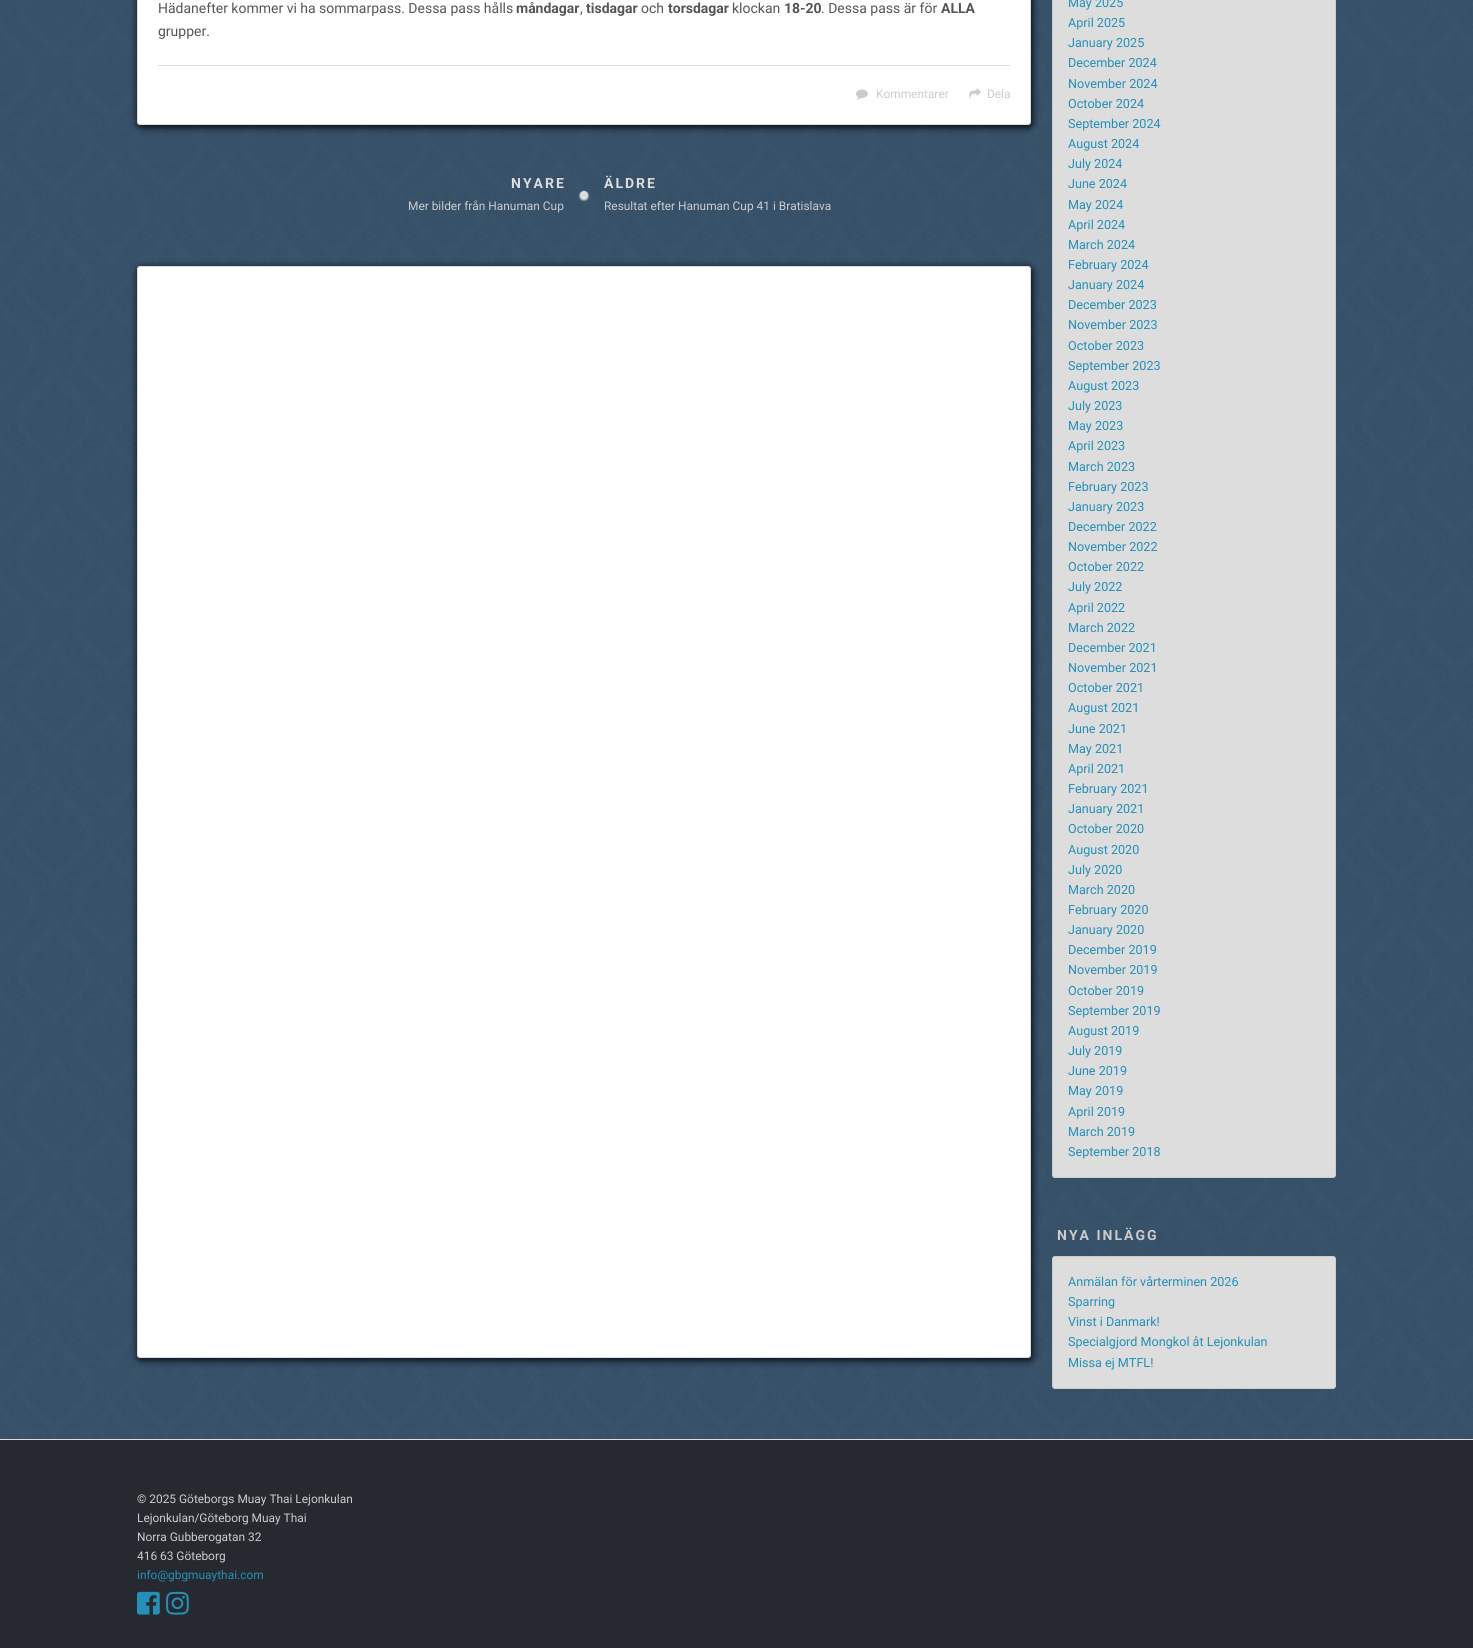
import math
import cairo



def draw_spaced(context, x, y, s, letter, word):
    context.move_to(x, y)
    for ch in s:
        context.show_text(ch)
        context.rel_move_to(letter + word * (ch == ' '), 0)


def rounded_rect(context, x, y, w, h, r):
    context.new_sub_path()
    for i, (u, v) in enumerate([(x + w - r, y + h - r), (x + r, y + h - r), (x + r, y + r), (x + w - r, y + r)]):
        context.arc(u, v, r, i * math.pi / 2, (i + 1) * math.pi / 2)
    context.close_path()


def draw_shadow(context, x, y, w, h, r, blur, alpha):
    context.push_group_with_content(cairo.Content.ALPHA)
    context.set_operator(cairo.Operator.SOURCE)
    for i in range(15, -16, -2):
        e = blur * i / 6
        if min(w, h) + 2 * e > 0:
            context.set_source_rgba(0, 0, 0, alpha * math.erfc((i - 1) / 8.5) / 2)
            rounded_rect(context, x - e, y - e, w + 2 * e, h + 2 * e, max(0, min(r + e + blur * .6, min(w, h) / 2 + e)))
            context.fill()
    context.mask(context.pop_group())


def draw_image(context, path, x, y, w, h):
    context.save()
    context.set_source_surface(cairo.ImageSurface.create_from_png(path), x, y)
    context.rectangle(x, y, w, h)
    context.fill()
    context.restore()


def draw(context):
    context.set_source_rgb(1, 1, 1)
    context.paint()
    draw_image(context, "images/1.png", 0, 0, 1473, 1439)
    context.set_source_rgb(0, 0, 0)
    draw_shadow(context, 138, -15, 894, 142, 3, 4, 1)
    context.set_source_rgb(1, 1, 1)
    rounded_rect(context, 137.5, -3.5, 893, 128, 2.5)
    context.fill_preserve()
    context.set_source_rgb(221 / 255, 221 / 255, 221 / 255)
    context.set_line_width(1)
    context.stroke()
    context.rectangle(158, 65, 852, 1)
    context.fill()
    draw_image(context, "images/2.png", 856, 89, 12, 11)
    draw_image(context, "images/3.png", 969, 88, 12, 11)
    context.set_source_rgb(1, 1, 1)
    draw_shadow(context, 580, 192, 8, 8, 4, 1, 1)
    context.set_source_rgb(221 / 255, 221 / 255, 221 / 255)
    context.arc(584, 195, 4, 0, 2 * math.pi)
    context.fill()
    context.set_source_rgb(0, 0, 0)
    draw_shadow(context, 138, 268, 894, 1092, 3, 4, 1)
    context.set_source_rgb(1, 1, 1)
    rounded_rect(context, 137.5, 266.5, 893, 1091, 2.5)
    context.fill_preserve()
    context.set_source_rgb(221 / 255, 221 / 255, 221 / 255)
    context.stroke()
    rounded_rect(context, 1052.5, -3.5, 283, 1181, 2.5)
    context.fill_preserve()
    context.set_source_rgb(204 / 255, 204 / 255, 204 / 255)
    context.stroke()
    context.set_source_rgb(221 / 255, 221 / 255, 221 / 255)
    rounded_rect(context, 1052.5, 1256.5, 283, 132, 2.5)
    context.fill_preserve()
    context.set_source_rgb(204 / 255, 204 / 255, 204 / 255)
    context.stroke()
    context.set_source_rgb(38 / 255, 42 / 255, 48 / 255)
    context.rectangle(0, 1440, 1473, 208)
    context.fill()
    context.set_source_rgb(221 / 255, 221 / 255, 221 / 255)
    context.rectangle(0, 1439, 1473, 1)
    context.fill()
    draw_image(context, "images/4.png", 137, 1591, 23, 24)
    draw_image(context, "images/5.png", 166, 1591, 23, 24)
    context.select_font_face("Roboto")
    context.set_font_size(14)
    context.set_source_rgb(85 / 255, 85 / 255, 85 / 255)
    context.move_to(158, 13)
    context.show_text("Hädanefter kommer vi ha sommarpass. Dessa pass hålls")
    context.select_font_face("Roboto", cairo.FontSlant.NORMAL, cairo.FontWeight.BOLD)
    context.move_to(516, 13)
    context.show_text("måndagar")
    context.select_font_face("Roboto")
    context.move_to(580, 13)
    context.show_text(",")
    context.select_font_face("Roboto", cairo.FontSlant.NORMAL, cairo.FontWeight.BOLD)
    context.move_to(586, 13)
    context.show_text("tisdagar")
    context.select_font_face("Roboto")
    context.move_to(641, 13)
    context.show_text("och")
    context.select_font_face("Roboto", cairo.FontSlant.NORMAL, cairo.FontWeight.BOLD)
    context.move_to(668, 13)
    context.show_text("torsdagar")
    context.select_font_face("Roboto")
    context.move_to(732, 13)
    context.show_text("klockan")
    context.select_font_face("Roboto", cairo.FontSlant.NORMAL, cairo.FontWeight.BOLD)
    context.move_to(784, 13)
    context.show_text("18-20")
    context.select_font_face("Roboto")
    context.move_to(821, 13)
    context.show_text(". Dessa pass är för")
    context.select_font_face("Roboto", cairo.FontSlant.NORMAL, cairo.FontWeight.BOLD)
    context.move_to(941, 13)
    context.show_text("ALLA")
    context.select_font_face("Roboto")
    context.move_to(158, 36)
    context.show_text("grupper.")
    context.set_font_size(11.9)
    context.set_source_rgb(204 / 255, 204 / 255, 204 / 255)
    context.move_to(876, 98)
    context.show_text("Kommentarer")
    context.move_to(987, 98)
    context.show_text("Dela")
    context.select_font_face("Roboto", cairo.FontSlant.NORMAL, cairo.FontWeight.BOLD)
    context.set_font_size(14)
    context.set_source_rgb(221 / 255, 221 / 255, 221 / 255)
    draw_spaced(context, 511, 188, "NYARE", 2, 0)
    context.select_font_face("Roboto")
    context.set_font_size(11.9)
    context.set_source_rgb(204 / 255, 204 / 255, 204 / 255)
    context.move_to(408, 210)
    context.show_text("Mer bilder från Hanuman Cup")
    context.select_font_face("Roboto", cairo.FontSlant.NORMAL, cairo.FontWeight.BOLD)
    context.set_font_size(14)
    context.set_source_rgb(221 / 255, 221 / 255, 221 / 255)
    draw_spaced(context, 604, 188, "ÄLDRE", 2, 0)
    context.select_font_face("Roboto")
    context.set_font_size(11.9)
    context.set_source_rgb(204 / 255, 204 / 255, 204 / 255)
    context.move_to(604, 210)
    context.show_text("Resultat efter Hanuman Cup 41 i Bratislava")
    context.set_font_size(12.6)
    context.set_source_rgb(37 / 255, 143 / 255, 184 / 255)
    context.move_to(1068, 7)
    context.show_text("May 2025")
    context.move_to(1068, 27)
    context.show_text("April 2025")
    context.move_to(1068, 47)
    context.show_text("January 2025")
    context.move_to(1068, 67)
    context.show_text("December 2024")
    context.move_to(1068, 88)
    context.show_text("November 2024")
    context.move_to(1068, 108)
    context.show_text("October 2024")
    context.move_to(1068, 128)
    context.show_text("September 2024")
    context.move_to(1068, 148)
    context.show_text("August 2024")
    context.move_to(1068, 168)
    context.show_text("July 2024")
    context.move_to(1068, 188)
    context.show_text("June 2024")
    context.move_to(1068, 209)
    context.show_text("May 2024")
    context.move_to(1068, 229)
    context.show_text("April 2024")
    context.move_to(1068, 249)
    context.show_text("March 2024")
    context.move_to(1068, 269)
    context.show_text("February 2024")
    context.move_to(1068, 289)
    context.show_text("January 2024")
    context.move_to(1068, 309)
    context.show_text("December 2023")
    context.move_to(1068, 329)
    context.show_text("November 2023")
    context.move_to(1068, 350)
    context.show_text("October 2023")
    context.move_to(1068, 370)
    context.show_text("September 2023")
    context.move_to(1068, 390)
    context.show_text("August 2023")
    context.move_to(1068, 410)
    context.show_text("July 2023")
    context.move_to(1068, 430)
    context.show_text("May 2023")
    context.move_to(1068, 450)
    context.show_text("April 2023")
    context.move_to(1068, 471)
    context.show_text("March 2023")
    context.move_to(1068, 491)
    context.show_text("February 2023")
    context.move_to(1068, 511)
    context.show_text("January 2023")
    context.move_to(1068, 531)
    context.show_text("December 2022")
    context.move_to(1068, 551)
    context.show_text("November 2022")
    context.move_to(1068, 571)
    context.show_text("October 2022")
    context.move_to(1068, 591)
    context.show_text("July 2022")
    context.move_to(1068, 612)
    context.show_text("April 2022")
    context.move_to(1068, 632)
    context.show_text("March 2022")
    context.move_to(1068, 652)
    context.show_text("December 2021")
    context.move_to(1068, 672)
    context.show_text("November 2021")
    context.move_to(1068, 692)
    context.show_text("October 2021")
    context.move_to(1068, 712)
    context.show_text("August 2021")
    context.move_to(1068, 733)
    context.show_text("June 2021")
    context.move_to(1068, 753)
    context.show_text("May 2021")
    context.move_to(1068, 773)
    context.show_text("April 2021")
    context.move_to(1068, 793)
    context.show_text("February 2021")
    context.move_to(1068, 813)
    context.show_text("January 2021")
    context.move_to(1068, 833)
    context.show_text("October 2020")
    context.move_to(1068, 854)
    context.show_text("August 2020")
    context.move_to(1068, 874)
    context.show_text("July 2020")
    context.move_to(1068, 894)
    context.show_text("March 2020")
    context.move_to(1068, 914)
    context.show_text("February 2020")
    context.move_to(1068, 934)
    context.show_text("January 2020")
    context.move_to(1068, 954)
    context.show_text("December 2019")
    context.move_to(1068, 974)
    context.show_text("November 2019")
    context.move_to(1068, 995)
    context.show_text("October 2019")
    context.move_to(1068, 1015)
    context.show_text("September 2019")
    context.move_to(1068, 1035)
    context.show_text("August 2019")
    context.move_to(1068, 1055)
    context.show_text("July 2019")
    context.move_to(1068, 1075)
    context.show_text("June 2019")
    context.move_to(1068, 1095)
    context.show_text("May 2019")
    context.move_to(1068, 1116)
    context.show_text("April 2019")
    context.move_to(1068, 1136)
    context.show_text("March 2019")
    context.move_to(1068, 1156)
    context.show_text("September 2018")
    context.select_font_face("Roboto", cairo.FontSlant.NORMAL, cairo.FontWeight.BOLD)
    context.set_font_size(14)
    context.set_source_rgb(204 / 255, 204 / 255, 204 / 255)
    draw_spaced(context, 1057, 1240, "NYA INLÄGG", 2, 0)
    context.select_font_face("Roboto")
    context.set_font_size(12.6)
    context.set_source_rgb(37 / 255, 143 / 255, 184 / 255)
    context.move_to(1068, 1286)
    context.show_text("Anmälan för vårterminen 2026")
    context.move_to(1068, 1306)
    context.show_text("Sparring")
    context.move_to(1068, 1326)
    context.show_text("Vinst i Danmark!")
    context.move_to(1068, 1346)
    context.show_text("Specialgjord Mongkol åt Lejonkulan")
    context.move_to(1068, 1367)
    context.show_text("Missa ej MTFL!")
    context.set_font_size(11.9)
    context.set_source_rgb(204 / 255, 204 / 255, 204 / 255)
    context.move_to(137, 1503)
    context.show_text("© 2025 Göteborgs Muay Thai Lejonkulan")
    context.move_to(137, 1522)
    context.show_text("Lejonkulan/Göteborg Muay Thai")
    context.move_to(137, 1541)
    context.show_text("Norra Gubberogatan 32")
    context.move_to(137, 1560)
    context.show_text("416 63 Göteborg")
    context.set_source_rgb(37 / 255, 143 / 255, 184 / 255)
    context.move_to(137, 1579)
    context.show_text("info@gbgmuaythai.com")


surface = cairo.ImageSurface(cairo.Format.RGB24, 1473, 1648)
context = cairo.Context(surface)
options = cairo.FontOptions()
options.set_hint_metrics(cairo.HintMetrics.OFF)
options.set_hint_style(cairo.HintStyle.NONE)
context.set_font_options(options)
context.set_miter_limit(4)
draw(context)
surface.write_to_png("out.png")
